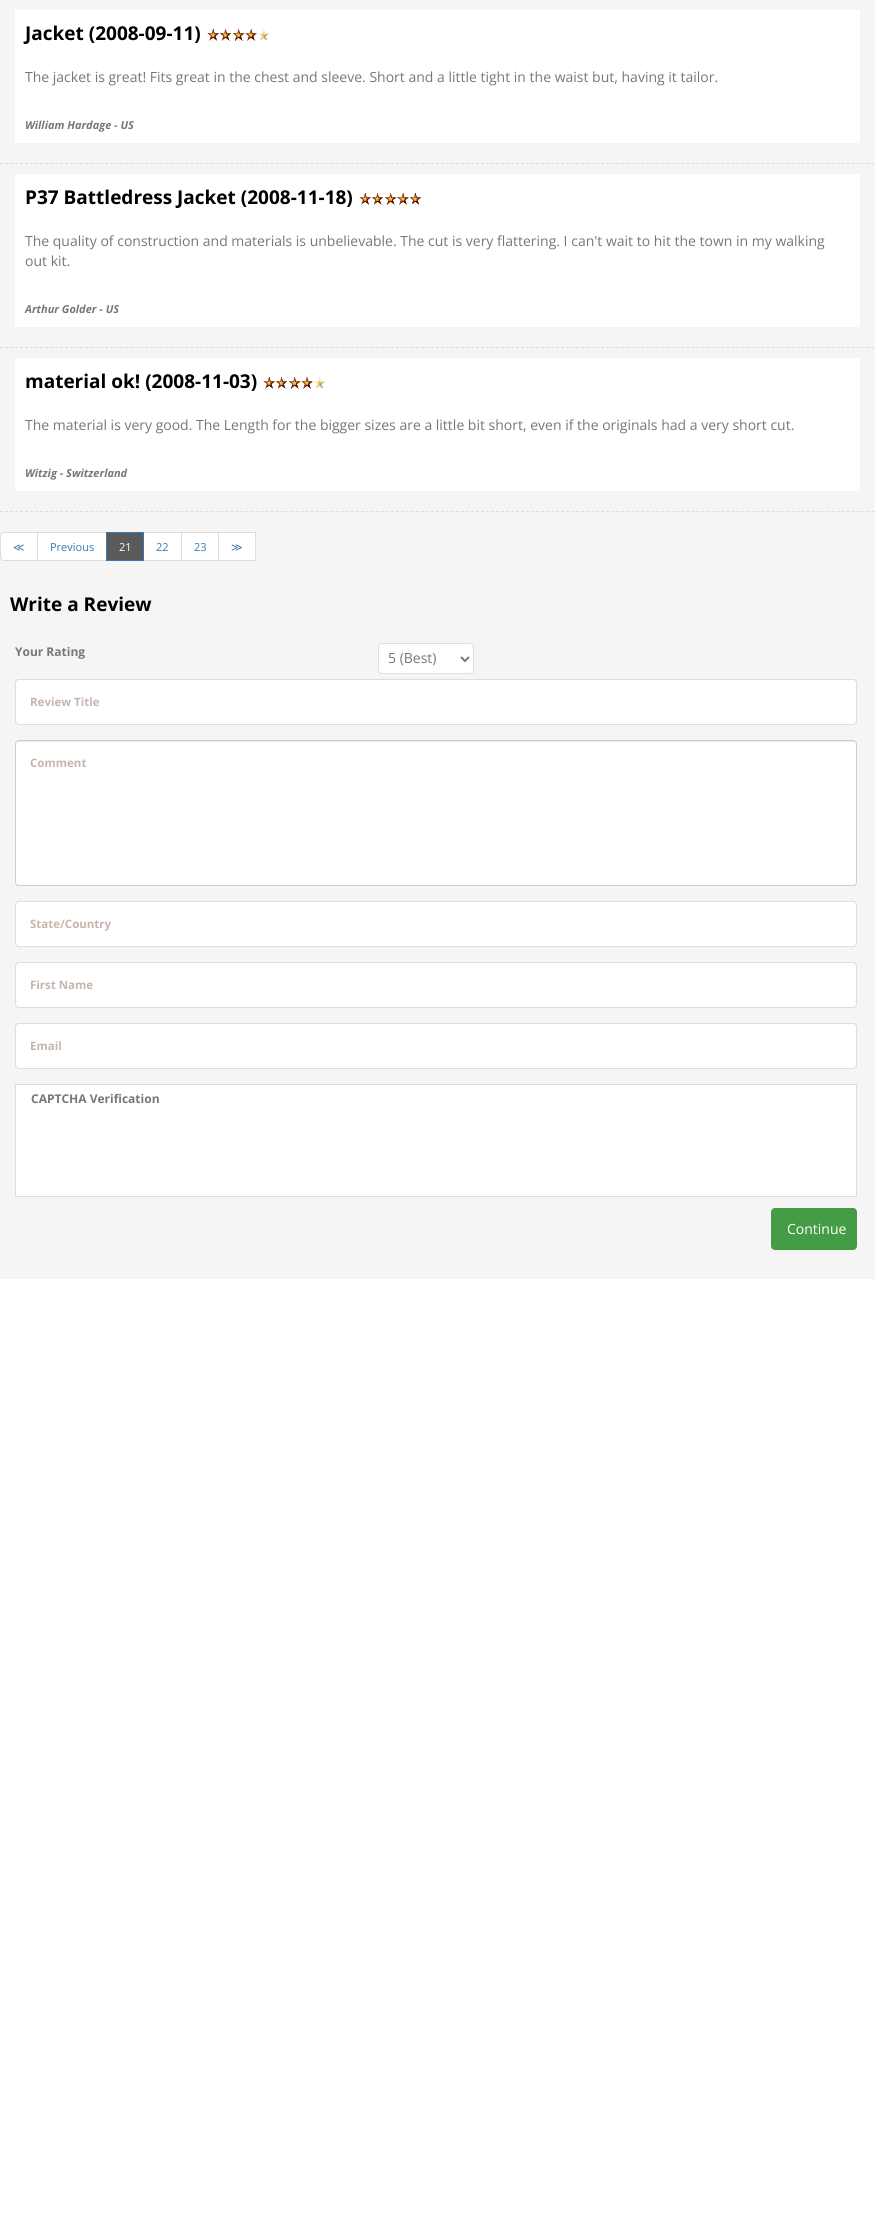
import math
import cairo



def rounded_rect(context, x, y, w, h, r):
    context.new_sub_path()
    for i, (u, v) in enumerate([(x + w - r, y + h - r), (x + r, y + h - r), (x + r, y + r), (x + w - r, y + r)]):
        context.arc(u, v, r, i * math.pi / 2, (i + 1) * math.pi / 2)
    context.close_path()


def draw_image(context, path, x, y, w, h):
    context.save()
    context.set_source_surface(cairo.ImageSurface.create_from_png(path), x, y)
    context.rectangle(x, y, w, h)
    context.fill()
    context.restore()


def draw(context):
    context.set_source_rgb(1, 1, 1)
    context.paint()
    context.set_source_rgb(245 / 255, 245 / 255, 245 / 255)
    context.rectangle(0, 0, 875, 1279)
    context.fill()
    context.new_path()
    context.move_to(0, 163.5)
    context.line_to(875, 163.5)
    context.set_source_rgb(221 / 255, 221 / 255, 221 / 255)
    context.set_line_width(1)
    context.set_dash([3, 2.01])
    context.stroke()
    context.set_source_rgb(1, 1, 1)
    context.rectangle(15, 10, 845, 133)
    context.fill()
    draw_image(context, "images/1.png", 207, 29, 62, 12)
    context.new_path()
    context.move_to(0, 347.5)
    context.line_to(875, 347.5)
    context.set_source_rgb(221 / 255, 221 / 255, 221 / 255)
    context.stroke()
    context.set_source_rgb(1, 1, 1)
    context.rectangle(15, 174, 845, 153)
    context.fill()
    draw_image(context, "images/2.png", 359, 193, 62, 12)
    context.new_path()
    context.move_to(0, 511.5)
    context.line_to(875, 511.5)
    context.set_source_rgb(221 / 255, 221 / 255, 221 / 255)
    context.stroke()
    context.set_source_rgb(1, 1, 1)
    context.rectangle(15, 358, 845, 133)
    context.fill()
    draw_image(context, "images/1.png", 263, 377, 62, 12)
    context.new_path()
    context.move_to(4, 532.5)
    context.line_to(37.5, 532.5)
    context.line_to(37.5, 560.5)
    context.line_to(4, 560.5)
    context.curve_to(2, 560.5, 0.5, 559, 0.5, 557)
    context.line_to(0.5, 536)
    context.curve_to(0.5, 534, 2, 532.5, 4, 532.5)
    context.close_path()
    context.fill_preserve()
    context.set_source_rgb(221 / 255, 221 / 255, 221 / 255)
    context.set_dash([])
    context.stroke()
    context.set_source_rgb(1, 1, 1)
    context.rectangle(37.5, 532.5, 69, 28)
    context.fill_preserve()
    context.set_source_rgb(221 / 255, 221 / 255, 221 / 255)
    context.stroke()
    context.set_source_rgb(1, 1, 1)
    context.rectangle(143.5, 532.5, 38, 28)
    context.fill_preserve()
    context.set_source_rgb(221 / 255, 221 / 255, 221 / 255)
    context.stroke()
    context.set_source_rgb(90 / 255, 90 / 255, 90 / 255)
    context.rectangle(106.5, 532.5, 37, 28)
    context.fill_preserve()
    context.set_source_rgb(51 / 255, 122 / 255, 183 / 255)
    context.stroke()
    context.set_source_rgb(1, 1, 1)
    context.rectangle(181.5, 532.5, 37, 28)
    context.fill_preserve()
    context.set_source_rgb(221 / 255, 221 / 255, 221 / 255)
    context.stroke()
    context.set_source_rgb(1, 1, 1)
    context.rectangle(218.5, 532.5, 37, 28)
    context.fill_preserve()
    context.set_source_rgb(221 / 255, 221 / 255, 221 / 255)
    context.stroke()
    context.set_source_rgb(1, 1, 1)
    rounded_rect(context, 378.5, 643.5, 95, 30, 3.5)
    context.fill_preserve()
    context.set_source_rgb(221 / 255, 221 / 255, 221 / 255)
    context.stroke()
    context.new_path()
    context.move_to(461, 657)
    context.line_to(465, 661)
    context.line_to(469, 657)
    context.set_source_rgb(119 / 255, 119 / 255, 119 / 255)
    context.set_line_width(2)
    context.stroke()
    context.set_source_rgb(1, 1, 1)
    rounded_rect(context, 15.5, 679.5, 841, 45, 3.5)
    context.fill_preserve()
    context.set_source_rgb(221 / 255, 221 / 255, 221 / 255)
    context.set_line_width(1)
    context.stroke()
    context.set_source_rgb(1, 1, 1)
    rounded_rect(context, 15, 740, 842, 146, 4)
    context.fill()
    context.set_source_rgb(236 / 255, 236 / 255, 236 / 255)
    context.new_path()
    context.move_to(19, 742)
    context.line_to(853, 742)
    context.curve_to(855, 742, 856, 743, 856, 745)
    context.curve_to(856, 743, 855, 741, 853, 741)
    context.line_to(19, 741)
    context.curve_to(17, 741, 16, 743, 16, 745)
    context.curve_to(16, 743, 17, 742, 19, 742)
    context.close_path()
    context.fill()
    rounded_rect(context, 15.5, 740.5, 841, 145, 3.5)
    context.set_source_rgb(204 / 255, 204 / 255, 204 / 255)
    context.stroke()
    context.set_source_rgb(1, 1, 1)
    rounded_rect(context, 15.5, 901.5, 841, 45, 3.5)
    context.fill_preserve()
    context.set_source_rgb(221 / 255, 221 / 255, 221 / 255)
    context.stroke()
    context.set_source_rgb(1, 1, 1)
    rounded_rect(context, 15.5, 962.5, 841, 45, 3.5)
    context.fill_preserve()
    context.set_source_rgb(221 / 255, 221 / 255, 221 / 255)
    context.stroke()
    context.set_source_rgb(1, 1, 1)
    rounded_rect(context, 15.5, 1023.5, 841, 45, 3.5)
    context.fill_preserve()
    context.set_source_rgb(221 / 255, 221 / 255, 221 / 255)
    context.stroke()
    context.set_source_rgb(1, 1, 1)
    context.rectangle(15.5, 1084.5, 841, 112)
    context.fill_preserve()
    context.set_source_rgb(221 / 255, 221 / 255, 221 / 255)
    context.stroke()
    context.set_source_rgb(68 / 255, 157 / 255, 68 / 255)
    rounded_rect(context, 771, 1208, 86, 42, 4)
    context.fill()
    context.select_font_face("Open Sans", cairo.FontSlant.NORMAL, cairo.FontWeight.BOLD)
    context.set_font_size(19)
    context.set_source_rgb(0, 0, 0)
    context.move_to(25, 40)
    context.show_text("Jacket (2008-09-11)")
    context.select_font_face("Open Sans")
    context.set_font_size(14)
    context.set_source_rgb(119 / 255, 119 / 255, 119 / 255)
    context.move_to(25, 82)
    context.show_text("The jacket is great! Fits great in the chest and sleeve. Short and a little tight in the waist but, having it tailor.")
    context.select_font_face("Open Sans", cairo.FontSlant.ITALIC, cairo.FontWeight.BOLD)
    context.set_font_size(11)
    context.move_to(25, 129)
    context.show_text("William Hardage - US")
    context.select_font_face("Open Sans", cairo.FontSlant.NORMAL, cairo.FontWeight.BOLD)
    context.set_font_size(19)
    context.set_source_rgb(0, 0, 0)
    context.move_to(25, 204)
    context.show_text("P37 Battledress Jacket (2008-11-18)")
    context.select_font_face("Open Sans")
    context.set_font_size(14)
    context.set_source_rgb(119 / 255, 119 / 255, 119 / 255)
    context.move_to(25, 246)
    context.show_text("The quality of construction and materials is unbelievable. The cut is very flattering. I can't wait to hit the town in my walking")
    context.move_to(25, 266)
    context.show_text("out kit.")
    context.select_font_face("Open Sans", cairo.FontSlant.ITALIC, cairo.FontWeight.BOLD)
    context.set_font_size(11)
    context.move_to(25, 313)
    context.show_text("Arthur Golder - US")
    context.select_font_face("Open Sans", cairo.FontSlant.NORMAL, cairo.FontWeight.BOLD)
    context.set_font_size(19)
    context.set_source_rgb(0, 0, 0)
    context.move_to(25, 388)
    context.show_text("material ok! (2008-11-03)")
    context.select_font_face("Open Sans")
    context.set_font_size(14)
    context.set_source_rgb(119 / 255, 119 / 255, 119 / 255)
    context.move_to(25, 430)
    context.show_text("The material is very good. The Length for the bigger sizes are a little bit short, even if the originals had a very short cut.")
    context.select_font_face("Open Sans", cairo.FontSlant.ITALIC, cairo.FontWeight.BOLD)
    context.set_font_size(11)
    context.move_to(25, 477)
    context.show_text("Witzig - Switzerland")
    context.select_font_face("DejaVu Sans")
    context.set_source_rgb(51 / 255, 122 / 255, 183 / 255)
    context.move_to(13, 551)
    context.show_text("≪")
    context.select_font_face("Open Sans")
    context.move_to(50, 551)
    context.show_text("Previous")
    context.set_source_rgb(1, 1, 1)
    context.move_to(119, 551)
    context.show_text("21")
    context.set_source_rgb(51 / 255, 122 / 255, 183 / 255)
    context.move_to(156, 551)
    context.show_text("22")
    context.move_to(194, 551)
    context.show_text("23")
    context.select_font_face("DejaVu Sans")
    context.move_to(231, 551)
    context.show_text("≫")
    context.select_font_face("Open Sans", cairo.FontSlant.NORMAL, cairo.FontWeight.BOLD)
    context.set_font_size(19)
    context.set_source_rgb(0, 0, 0)
    context.move_to(10, 611)
    context.show_text("Write a Review")
    context.set_font_size(12)
    context.set_source_rgb(119 / 255, 119 / 255, 119 / 255)
    context.move_to(15, 656)
    context.show_text("Your Rating")
    context.select_font_face("Open Sans")
    context.set_font_size(14)
    context.move_to(388, 663)
    context.show_text("5 (Best)")
    context.select_font_face("Open Sans", cairo.FontSlant.NORMAL, cairo.FontWeight.BOLD)
    context.set_font_size(11.5)
    context.set_source_rgb(196 / 255, 182 / 255, 175 / 255)
    context.move_to(30, 706)
    context.show_text("Review Title")
    context.move_to(30, 767)
    context.show_text("Comment")
    context.move_to(30, 928)
    context.show_text("State/Country")
    context.move_to(30, 989)
    context.show_text("First Name")
    context.move_to(30, 1050)
    context.show_text("Email")
    context.set_font_size(12)
    context.set_source_rgb(119 / 255, 119 / 255, 119 / 255)
    context.move_to(31, 1103)
    context.show_text("CAPTCHA Verification")
    context.select_font_face("Open Sans")
    context.set_font_size(14)
    context.set_source_rgb(1, 1, 1)
    context.move_to(787, 1234)
    context.show_text("Continue")


surface = cairo.ImageSurface(cairo.Format.RGB24, 875, 2223)
context = cairo.Context(surface)
options = cairo.FontOptions()
options.set_hint_metrics(cairo.HintMetrics.OFF)
options.set_hint_style(cairo.HintStyle.NONE)
context.set_font_options(options)
context.set_miter_limit(4)
draw(context)
surface.write_to_png("out.png")
